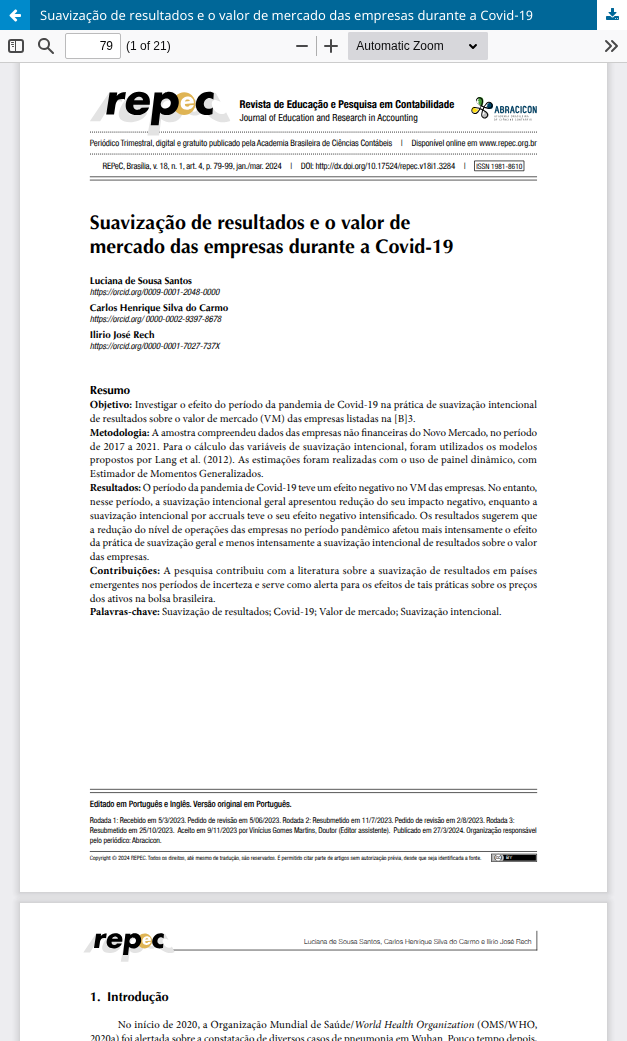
import math
import cairo



def draw_image(context, path, x, y, w, h):
    context.save()
    context.set_source_surface(cairo.ImageSurface.create_from_png(path), x, y)
    context.rectangle(x, y, w, h)
    context.fill()
    context.restore()


def draw(context):
    context.set_source_rgb(1, 1, 1)
    context.paint()
    context.set_source_rgb(0, 103 / 255, 152 / 255)
    context.rectangle(30, 0, 567, 30)
    context.fill()
    context.set_source_rgb(0, 138 / 255, 203 / 255)
    context.rectangle(0, 0, 30, 30)
    context.fill()
    draw_image(context, "images/1.png", 9, 9, 12, 13)
    draw_image(context, "images/2.png", 606, 8, 13, 12)
    draw_image(context, "images/3.png", 0, 30, 627, 1011)
    context.select_font_face("Noto Sans")
    context.set_font_size(13)
    context.set_source_rgb(1, 1, 1)
    context.move_to(40, 20)
    context.show_text("Suavização de resultados e o valor de mercado das empresas durante a Covid-19")


surface = cairo.ImageSurface(cairo.Format.RGB24, 627, 1041)
context = cairo.Context(surface)
options = cairo.FontOptions()
options.set_hint_metrics(cairo.HintMetrics.OFF)
options.set_hint_style(cairo.HintStyle.NONE)
context.set_font_options(options)
context.set_miter_limit(4)
draw(context)
surface.write_to_png("out.png")
